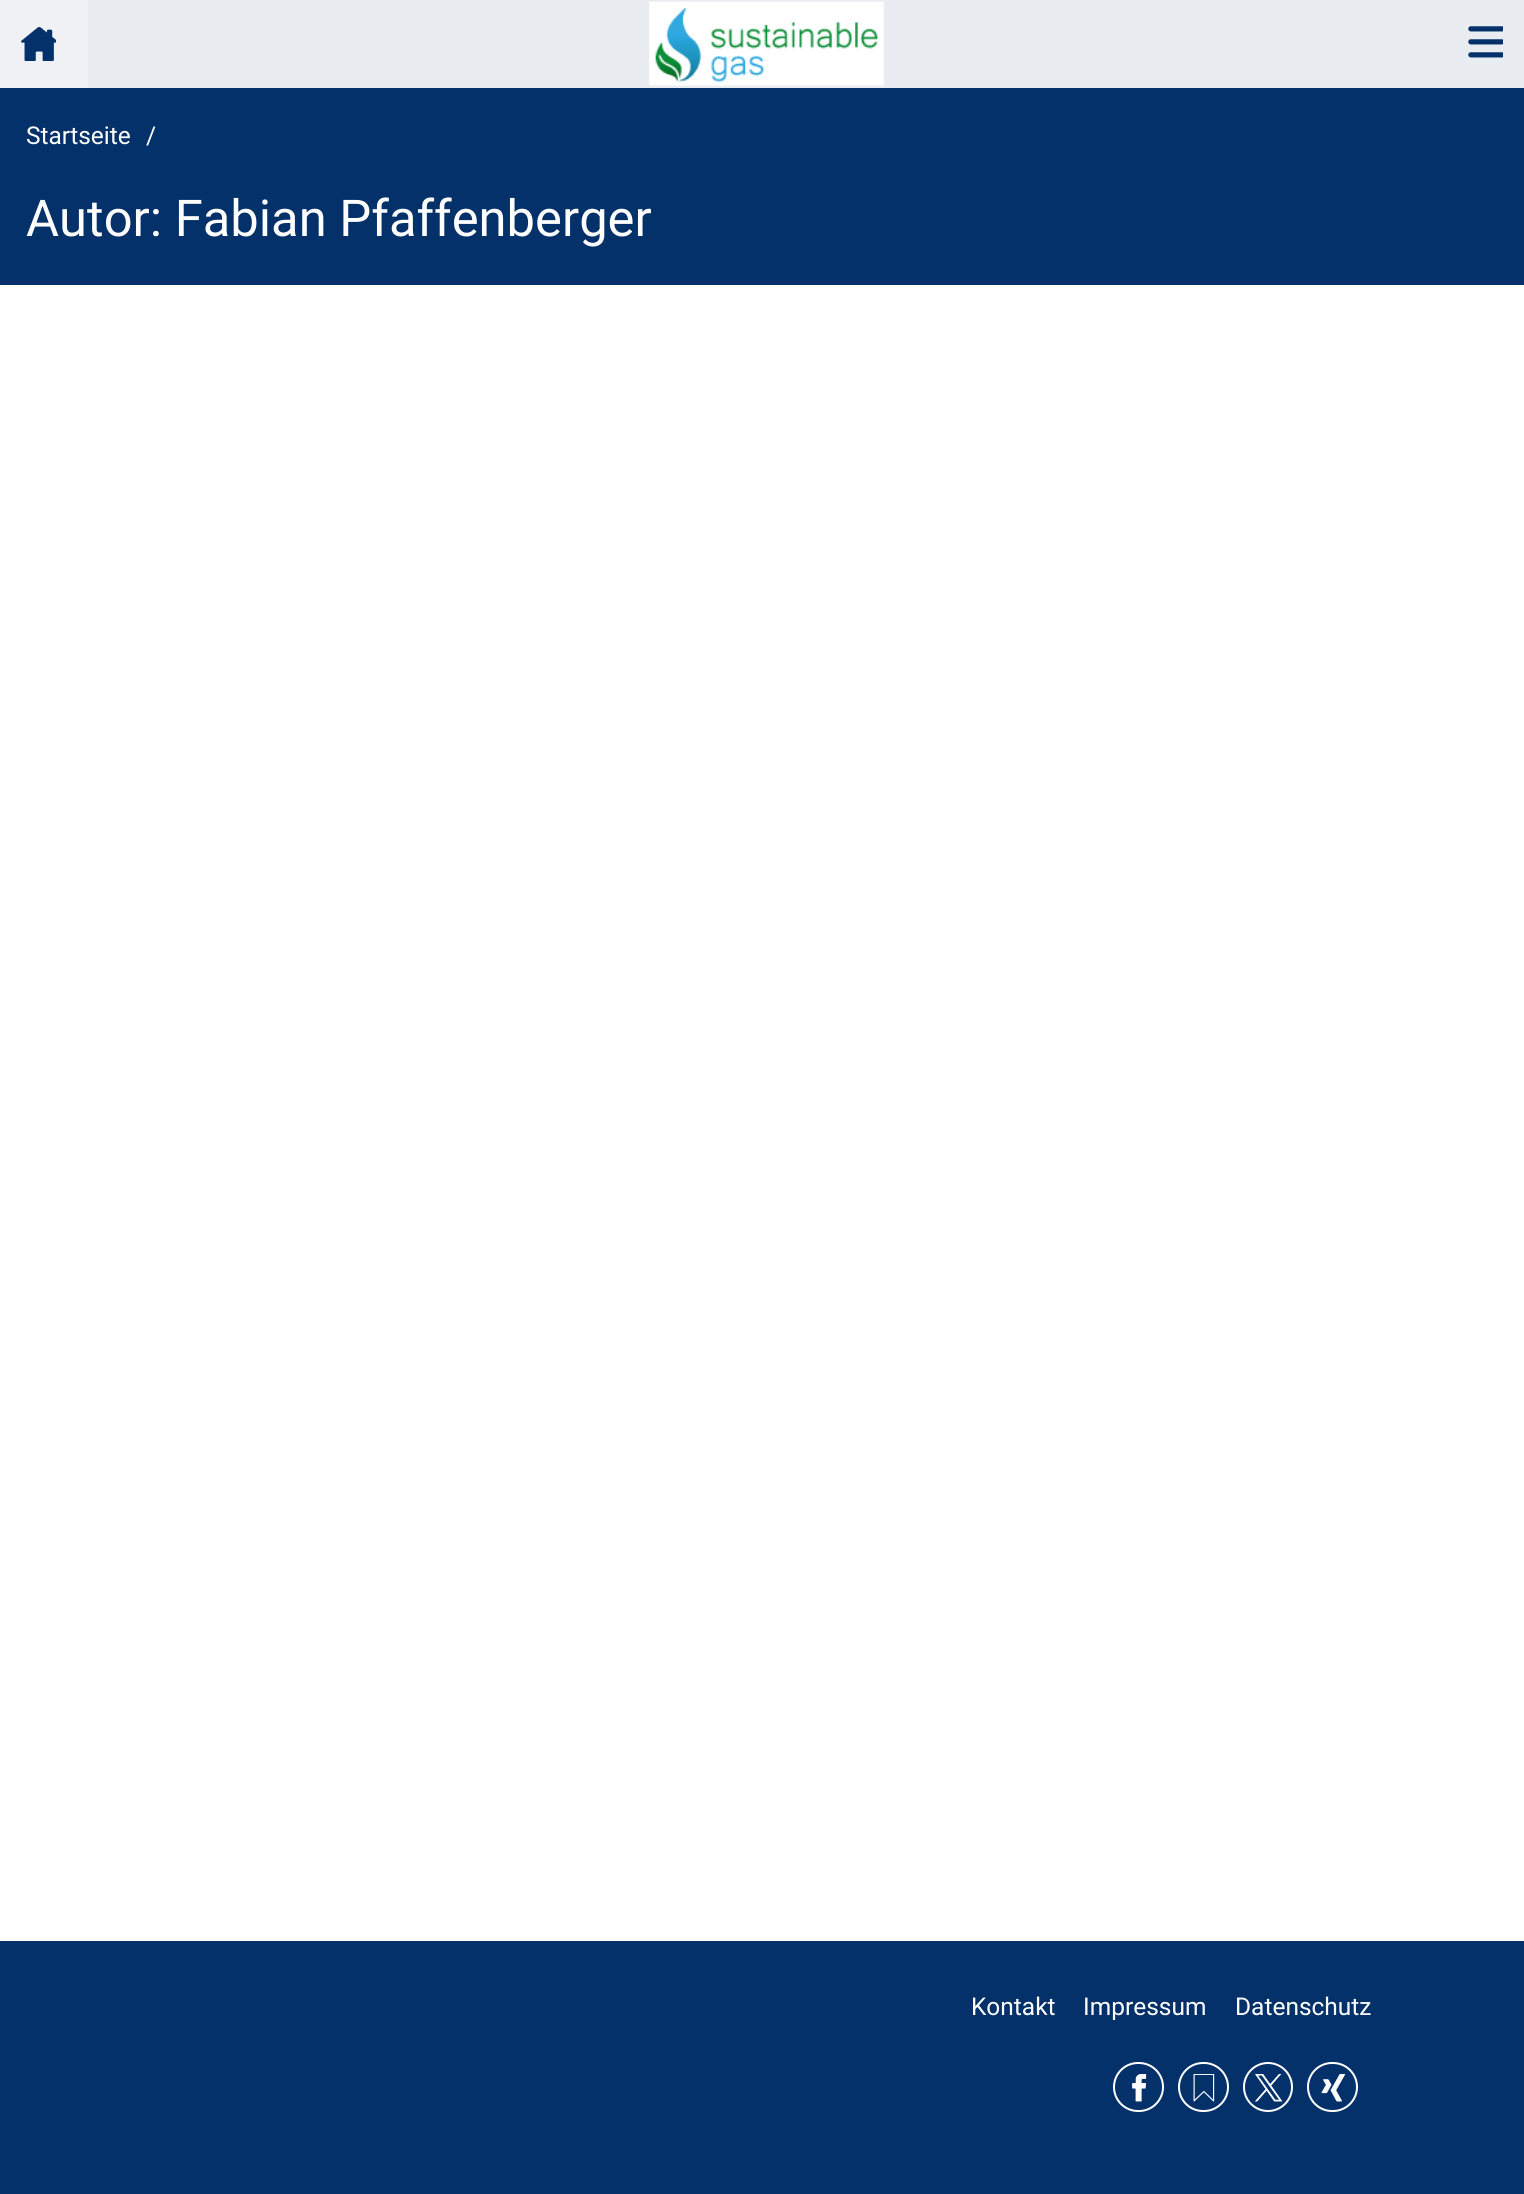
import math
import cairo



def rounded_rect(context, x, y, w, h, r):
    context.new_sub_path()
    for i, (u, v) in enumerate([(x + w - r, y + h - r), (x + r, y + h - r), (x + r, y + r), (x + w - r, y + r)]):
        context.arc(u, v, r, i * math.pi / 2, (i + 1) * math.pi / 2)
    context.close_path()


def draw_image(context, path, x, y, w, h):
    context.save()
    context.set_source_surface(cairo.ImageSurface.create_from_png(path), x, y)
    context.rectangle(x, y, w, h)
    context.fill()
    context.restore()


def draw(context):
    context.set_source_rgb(1, 1, 1)
    context.paint()
    context.set_source_rgb(233 / 255, 237 / 255, 242 / 255)
    context.rectangle(88, 0, 1436, 88)
    context.fill()
    context.set_source_rgb(239 / 255, 241 / 255, 244 / 255)
    context.rectangle(0, 0, 88, 88)
    context.fill()
    draw_image(context, "images/1.png", 21, 27, 35, 34)
    draw_image(context, "images/2.png", 649, 1, 235, 85)
    draw_image(context, "images/3.png", 1468, 26, 35, 32)
    context.set_source_rgb(4 / 255, 49 / 255, 106 / 255)
    context.rectangle(0, 88, 1524, 197)
    context.fill()
    context.rectangle(0, 1941, 1524, 253)
    context.fill()
    rounded_rect(context, 1114, 2063, 49, 48, 24)
    context.set_source_rgb(1, 1, 1)
    context.stroke()
    draw_image(context, "images/4.png", 1132, 2074, 15, 28)
    rounded_rect(context, 1179, 2063, 49, 48, 24)
    context.stroke()
    draw_image(context, "images/5.png", 1193, 2074, 22, 28)
    context.arc(1268, 2087, 24, 0, 2 * math.pi)
    context.stroke()
    draw_image(context, "images/6.png", 1255, 2074, 28, 28)
    rounded_rect(context, 1308, 2063, 49, 48, 24)
    context.stroke()
    draw_image(context, "images/7.png", 1321, 2074, 25, 28)
    context.select_font_face("Roboto")
    context.set_font_size(24.5)
    context.move_to(26, 144)
    context.show_text("Startseite")
    context.move_to(146, 144)
    context.show_text("/")
    context.set_font_size(50.75)
    context.move_to(26, 236)
    context.show_text("Autor: Fabian Pfaffenberger")
    context.set_font_size(24.5)
    context.move_to(971, 2015)
    context.show_text("Kontakt")
    context.move_to(1083, 2015)
    context.show_text("Impressum")
    context.move_to(1235, 2015)
    context.show_text("Datenschutz")


surface = cairo.ImageSurface(cairo.Format.RGB24, 1524, 2194)
context = cairo.Context(surface)
options = cairo.FontOptions()
options.set_hint_metrics(cairo.HintMetrics.OFF)
options.set_hint_style(cairo.HintStyle.NONE)
context.set_font_options(options)
context.set_miter_limit(4)
draw(context)
surface.write_to_png("out.png")
